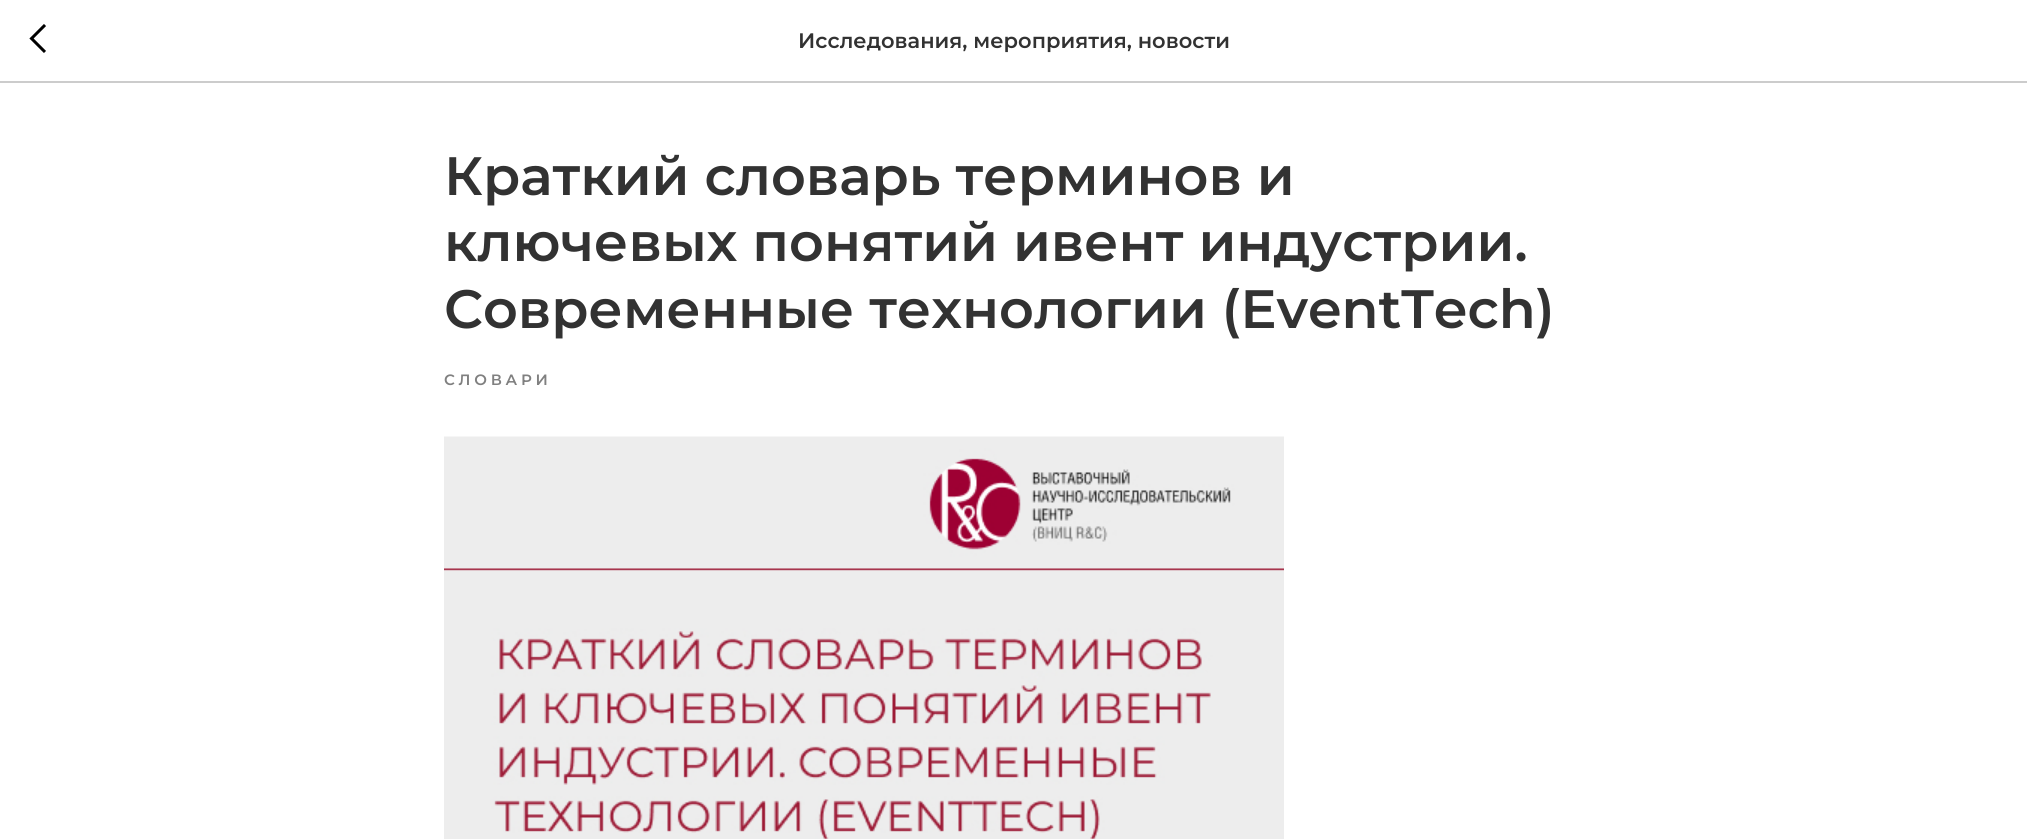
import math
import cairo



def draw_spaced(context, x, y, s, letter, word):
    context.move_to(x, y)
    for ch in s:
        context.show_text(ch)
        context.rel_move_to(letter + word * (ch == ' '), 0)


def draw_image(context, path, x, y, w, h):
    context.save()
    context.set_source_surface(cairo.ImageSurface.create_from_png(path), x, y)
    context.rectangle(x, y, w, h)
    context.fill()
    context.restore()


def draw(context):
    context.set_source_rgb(1, 1, 1)
    context.paint()
    context.set_source_rgb(204 / 255, 204 / 255, 204 / 255)
    context.rectangle(0, 81, 2027, 2)
    context.fill()
    context.new_path()
    context.move_to(45, 52)
    context.line_to(31.5, 38.5)
    context.line_to(45, 25)
    context.set_source_rgb(0, 0, 0)
    context.set_line_width(3)
    context.stroke()
    draw_image(context, "images/1.png", 444, 436, 840, 403)
    context.select_font_face("Montserrat SemiBold")
    context.set_font_size(21)
    context.set_source_rgb(50 / 255, 50 / 255, 50 / 255)
    context.move_to(798, 48)
    context.show_text("Исследования, мероприятия, новости")
    context.set_font_size(54)
    context.move_to(444, 195)
    context.show_text("Краткий словарь терминов и")
    context.move_to(444, 261)
    context.show_text("ключевых понятий ивент индустрии.")
    context.move_to(444, 328)
    context.show_text("Современные технологии (EventTech)")
    context.set_font_size(15)
    context.set_source_rgb(128 / 255, 128 / 255, 128 / 255)
    draw_spaced(context, 444, 385, "СЛОВАРИ", 3.75, 0)


surface = cairo.ImageSurface(cairo.Format.RGB24, 2027, 839)
context = cairo.Context(surface)
options = cairo.FontOptions()
options.set_hint_metrics(cairo.HintMetrics.OFF)
options.set_hint_style(cairo.HintStyle.NONE)
context.set_font_options(options)
context.set_miter_limit(4)
draw(context)
surface.write_to_png("out.png")
